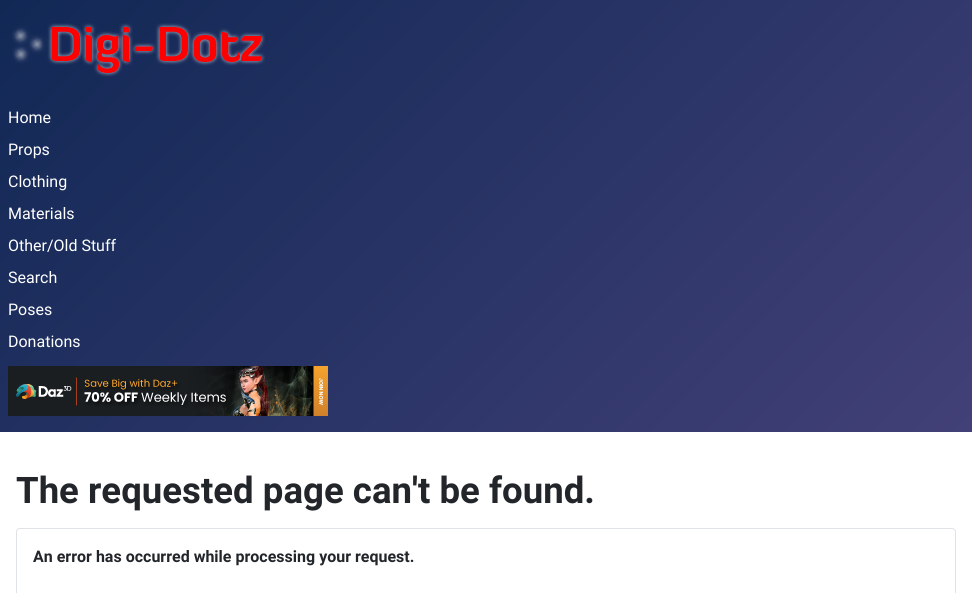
import math
import cairo



def rounded_rect(context, x, y, w, h, r):
    context.new_sub_path()
    for i, (u, v) in enumerate([(x + w - r, y + h - r), (x + r, y + h - r), (x + r, y + r), (x + w - r, y + r)]):
        context.arc(u, v, r, i * math.pi / 2, (i + 1) * math.pi / 2)
    context.close_path()


def draw_image(context, path, x, y, w, h):
    context.save()
    context.set_source_surface(cairo.ImageSurface.create_from_png(path), x, y)
    context.rectangle(x, y, w, h)
    context.fill()
    context.restore()


def draw(context):
    context.set_source_rgb(1, 1, 1)
    context.paint()
    gradient = cairo.LinearGradient(135, -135, 837, 567)
    gradient.add_color_stop_rgba(0, 17 / 255, 40 / 255, 85 / 255, 1)
    gradient.add_color_stop_rgba(1, 66 / 255, 64 / 255, 119 / 255, 1)
    context.set_source(gradient)
    context.rectangle(0, 0, 972, 432)
    context.fill()
    draw_image(context, "images/1.png", 12, 23, 253, 54)
    draw_image(context, "images/2.png", 8, 366, 320, 50)
    rounded_rect(context, 16.5, 528.5, 939, 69, 3.5)
    context.set_source_rgb(223 / 255, 227 / 255, 231 / 255)
    context.set_line_width(1)
    context.stroke()
    context.select_font_face("Roboto")
    context.set_font_size(16)
    context.set_source_rgb(1, 1, 1)
    context.move_to(8, 123)
    context.show_text("Home")
    context.move_to(8, 155)
    context.show_text("Props")
    context.move_to(8, 187)
    context.show_text("Clothing")
    context.move_to(8, 219)
    context.show_text("Materials")
    context.move_to(8, 251)
    context.show_text("Other/Old Stuff")
    context.move_to(8, 283)
    context.show_text("Search")
    context.move_to(8, 315)
    context.show_text("Poses")
    context.move_to(8, 347)
    context.show_text("Donations")
    context.select_font_face("Roboto", cairo.FontSlant.NORMAL, cairo.FontWeight.BOLD)
    context.set_font_size(36.6)
    context.set_source_rgb(34 / 255, 38 / 255, 42 / 255)
    context.move_to(16, 503)
    context.show_text("The requested page can't be found.")
    context.set_font_size(16)
    context.move_to(33, 562)
    context.show_text("An error has occurred while processing your request.")


surface = cairo.ImageSurface(cairo.Format.RGB24, 972, 593)
context = cairo.Context(surface)
options = cairo.FontOptions()
options.set_hint_metrics(cairo.HintMetrics.OFF)
options.set_hint_style(cairo.HintStyle.NONE)
context.set_font_options(options)
context.set_miter_limit(4)
draw(context)
surface.write_to_png("out.png")
